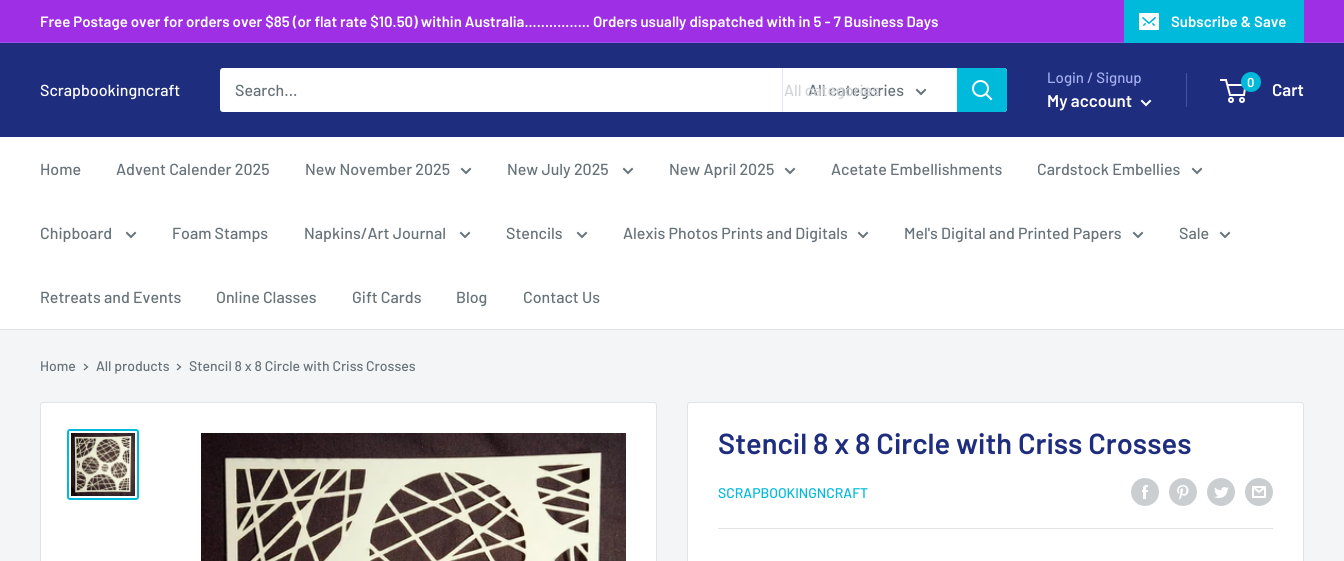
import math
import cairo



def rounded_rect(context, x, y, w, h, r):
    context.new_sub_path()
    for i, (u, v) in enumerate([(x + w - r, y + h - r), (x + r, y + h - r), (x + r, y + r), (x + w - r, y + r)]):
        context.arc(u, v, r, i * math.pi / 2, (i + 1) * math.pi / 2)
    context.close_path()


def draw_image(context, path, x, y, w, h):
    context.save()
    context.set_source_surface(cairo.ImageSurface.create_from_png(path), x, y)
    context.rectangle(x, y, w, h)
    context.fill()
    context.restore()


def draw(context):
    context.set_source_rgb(243 / 255, 245 / 255, 246 / 255)
    context.paint()
    context.set_source_rgb(158 / 255, 47 / 255, 228 / 255)
    context.rectangle(0, 0, 1344, 42)
    context.fill()
    context.set_source_rgb(160 / 255, 85 / 255, 231 / 255)
    context.rectangle(0, 42, 1344, 1)
    context.fill()
    context.set_source_rgb(0, 186 / 255, 219 / 255)
    context.rectangle(1124, 0, 180, 43)
    context.fill()
    draw_image(context, "images/1.png", 1139, 13, 20, 17)
    context.set_source_rgb(30 / 255, 45 / 255, 125 / 255)
    context.rectangle(0, 43, 1344, 94)
    context.fill()
    context.set_source_rgb(1, 1, 1)
    rounded_rect(context, 220, 68, 787, 44, 3)
    context.fill()
    context.set_source_rgb(227 / 255, 231 / 255, 250 / 255)
    context.rectangle(782, 68, 1, 44)
    context.fill()
    context.new_path()
    context.move_to(925, 90)
    context.line_to(921, 94)
    context.line_to(917, 90)
    context.set_source_rgb(103 / 255, 114 / 255, 121 / 255)
    context.set_line_cap(cairo.LineCap.SQUARE)
    context.stroke()
    context.set_source_rgb(0, 186 / 255, 219 / 255)
    context.new_path()
    context.move_to(957, 68)
    context.line_to(1004, 68)
    context.curve_to(1005.5, 68, 1007, 69.5, 1007, 71)
    context.line_to(1007, 109)
    context.curve_to(1007, 110.5, 1005.5, 112, 1004, 112)
    context.line_to(957, 112)
    context.close_path()
    context.fill()
    context.new_path()
    context.move_to(991, 99)
    context.line_to(986, 94)
    context.set_source_rgb(1, 1, 1)
    context.stroke()
    context.arc(980.5, 88.5, 7.5, 0, 2 * math.pi)
    context.set_line_cap(cairo.LineCap.BUTT)
    context.stroke()
    context.set_source_rgb(70 / 255, 84 / 255, 159 / 255)
    context.rectangle(1186, 73, 1, 34)
    context.fill()
    context.new_path()
    context.move_to(1150, 101)
    context.line_to(1146, 105)
    context.line_to(1142, 101)
    context.set_source_rgb(1, 1, 1)
    context.set_line_cap(cairo.LineCap.SQUARE)
    context.stroke()
    context.arc(1231, 100, 2, 0, 2 * math.pi)
    context.set_line_cap(cairo.LineCap.BUTT)
    context.stroke()
    context.arc(1242, 100, 2, 0, 2 * math.pi)
    context.stroke()
    context.new_path()
    context.move_to(1227.5, 85)
    context.line_to(1245.5, 85)
    context.line_to(1244, 95)
    context.line_to(1230, 95)
    context.line_to(1226, 80)
    context.line_to(1220, 80)
    context.stroke()
    context.set_source_rgb(0, 186 / 255, 219 / 255)
    context.arc(1251, 82, 10, 0, 2 * math.pi)
    context.fill()
    context.set_source_rgb(1, 1, 1)
    context.rectangle(0, 137, 1344, 192)
    context.fill()
    context.set_source_rgb(225 / 255, 227 / 255, 228 / 255)
    context.rectangle(0, 329, 1344, 1)
    context.fill()
    context.new_path()
    context.move_to(470, 169)
    context.line_to(466, 173)
    context.line_to(462, 169)
    context.set_source_rgb(103 / 255, 114 / 255, 121 / 255)
    context.set_line_cap(cairo.LineCap.SQUARE)
    context.stroke()
    context.new_path()
    context.move_to(632, 169)
    context.line_to(628, 173)
    context.line_to(624, 169)
    context.stroke()
    context.new_path()
    context.move_to(794, 169)
    context.line_to(790, 173)
    context.line_to(786, 169)
    context.stroke()
    context.new_path()
    context.move_to(1201, 169)
    context.line_to(1197, 173)
    context.line_to(1193, 169)
    context.stroke()
    context.new_path()
    context.move_to(135, 233)
    context.line_to(131, 237)
    context.line_to(127, 233)
    context.stroke()
    context.new_path()
    context.move_to(469, 233)
    context.line_to(465, 237)
    context.line_to(461, 233)
    context.stroke()
    context.new_path()
    context.move_to(586, 233)
    context.line_to(582, 237)
    context.line_to(578, 233)
    context.stroke()
    context.new_path()
    context.move_to(867, 233)
    context.line_to(863, 237)
    context.line_to(859, 233)
    context.stroke()
    context.new_path()
    context.move_to(1142, 233)
    context.line_to(1138, 237)
    context.line_to(1134, 233)
    context.stroke()
    context.new_path()
    context.move_to(1229, 233)
    context.line_to(1225, 237)
    context.line_to(1221, 233)
    context.stroke()
    context.new_path()
    context.move_to(84.5, 364.5)
    context.line_to(87.5, 367)
    context.line_to(84.5, 369.5)
    context.set_line_width(1.3)
    context.stroke()
    context.new_path()
    context.move_to(177.5, 364.5)
    context.line_to(180.5, 367)
    context.line_to(177.5, 369.5)
    context.stroke()
    context.set_source_rgb(1, 1, 1)
    rounded_rect(context, 40.5, 402.5, 616, 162, 2.5)
    context.fill_preserve()
    context.set_source_rgb(225 / 255, 227 / 255, 228 / 255)
    context.set_line_width(1)
    context.set_line_cap(cairo.LineCap.BUTT)
    context.stroke()
    rounded_rect(context, 68, 430, 70, 69, 2)
    context.set_source_rgb(0, 186 / 255, 219 / 255)
    context.set_line_width(2)
    context.stroke()
    draw_image(context, "images/2.png", 71, 433, 64, 63)
    draw_image(context, "images/3.png", 201, 433, 425, 128)
    context.set_source_rgb(1, 1, 1)
    rounded_rect(context, 687.5, 402.5, 616, 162, 2.5)
    context.fill_preserve()
    context.set_source_rgb(225 / 255, 227 / 255, 228 / 255)
    context.set_line_width(1)
    context.stroke()
    draw_image(context, "images/4.png", 1131, 478, 28, 28)
    draw_image(context, "images/5.png", 1169, 478, 28, 28)
    draw_image(context, "images/6.png", 1207, 478, 28, 28)
    draw_image(context, "images/7.png", 1245, 478, 28, 28)
    context.rectangle(718, 528, 555, 1)
    context.fill()
    context.select_font_face("Barlow SemiBold")
    context.set_font_size(15)
    context.set_source_rgb(1, 1, 1)
    context.move_to(40, 27)
    context.show_text("Free Postage over for orders over $85 (or flat rate $10.50) within Australia................ Orders usually dispatched with in 5 - 7 Business Days")
    context.move_to(1171, 27)
    context.show_text("Subscribe & Save")
    context.select_font_face("Barlow Medium")
    context.set_font_size(16)
    context.move_to(40, 96)
    context.show_text("Scrapbookingncraft")
    context.set_source_rgb(103 / 255, 114 / 255, 121 / 255)
    context.move_to(235, 96)
    context.show_text("Search...")
    context.move_to(808, 96)
    context.show_text("All categories")
    context.set_source_rgb(209 / 255, 212 / 255, 215 / 255)
    context.move_to(784, 96)
    context.show_text("All categories")
    context.set_font_size(15)
    context.set_source_rgb(163 / 255, 175 / 255, 239 / 255)
    context.move_to(1047, 83)
    context.show_text("Login / Signup")
    context.select_font_face("Barlow SemiBold")
    context.set_font_size(17)
    context.set_source_rgb(1, 1, 1)
    context.move_to(1047, 107)
    context.show_text("My account")
    context.set_font_size(13)
    context.move_to(1247, 87)
    context.show_text("0")
    context.set_font_size(17)
    context.move_to(1272, 96)
    context.show_text("Cart")
    context.select_font_face("Barlow Medium")
    context.set_font_size(16)
    context.set_source_rgb(103 / 255, 114 / 255, 121 / 255)
    context.move_to(40, 175)
    context.show_text("Home")
    context.move_to(116, 175)
    context.show_text("Advent Calender 2025")
    context.move_to(305, 175)
    context.show_text("New November 2025")
    context.move_to(507, 175)
    context.show_text("New July 2025")
    context.move_to(669, 175)
    context.show_text("New April 2025")
    context.move_to(831, 175)
    context.show_text("Acetate Embellishments")
    context.move_to(1037, 175)
    context.show_text("Cardstock Embellies")
    context.move_to(40, 239)
    context.show_text("Chipboard")
    context.move_to(172, 239)
    context.show_text("Foam Stamps")
    context.move_to(304, 239)
    context.show_text("Napkins/Art Journal")
    context.move_to(506, 239)
    context.show_text("Stencils")
    context.move_to(623, 239)
    context.show_text("Alexis Photos Prints and Digitals")
    context.move_to(904, 239)
    context.show_text("Mel's Digital and Printed Papers")
    context.move_to(1179, 239)
    context.show_text("Sale")
    context.move_to(40, 303)
    context.show_text("Retreats and Events")
    context.move_to(216, 303)
    context.show_text("Online Classes")
    context.move_to(352, 303)
    context.show_text("Gift Cards")
    context.move_to(456, 303)
    context.show_text("Blog")
    context.move_to(523, 303)
    context.show_text("Contact Us")
    context.set_font_size(14)
    context.move_to(40, 371)
    context.show_text("Home")
    context.move_to(96, 371)
    context.show_text("All products")
    context.move_to(189, 371)
    context.show_text("Stencil 8 x 8 Circle with Criss Crosses")
    context.select_font_face("Barlow SemiBold")
    context.set_font_size(29)
    context.set_source_rgb(30 / 255, 45 / 255, 125 / 255)
    context.move_to(718, 454)
    context.show_text("Stencil 8 x 8 Circle with Criss Crosses")
    context.select_font_face("Barlow Medium")
    context.set_font_size(14)
    context.set_source_rgb(0, 186 / 255, 219 / 255)
    context.move_to(718, 498)
    context.show_text("SCRAPBOOKINGNCRAFT")


surface = cairo.ImageSurface(cairo.Format.RGB24, 1344, 561)
context = cairo.Context(surface)
options = cairo.FontOptions()
options.set_hint_metrics(cairo.HintMetrics.OFF)
options.set_hint_style(cairo.HintStyle.NONE)
context.set_font_options(options)
context.set_miter_limit(4)
draw(context)
surface.write_to_png("out.png")
